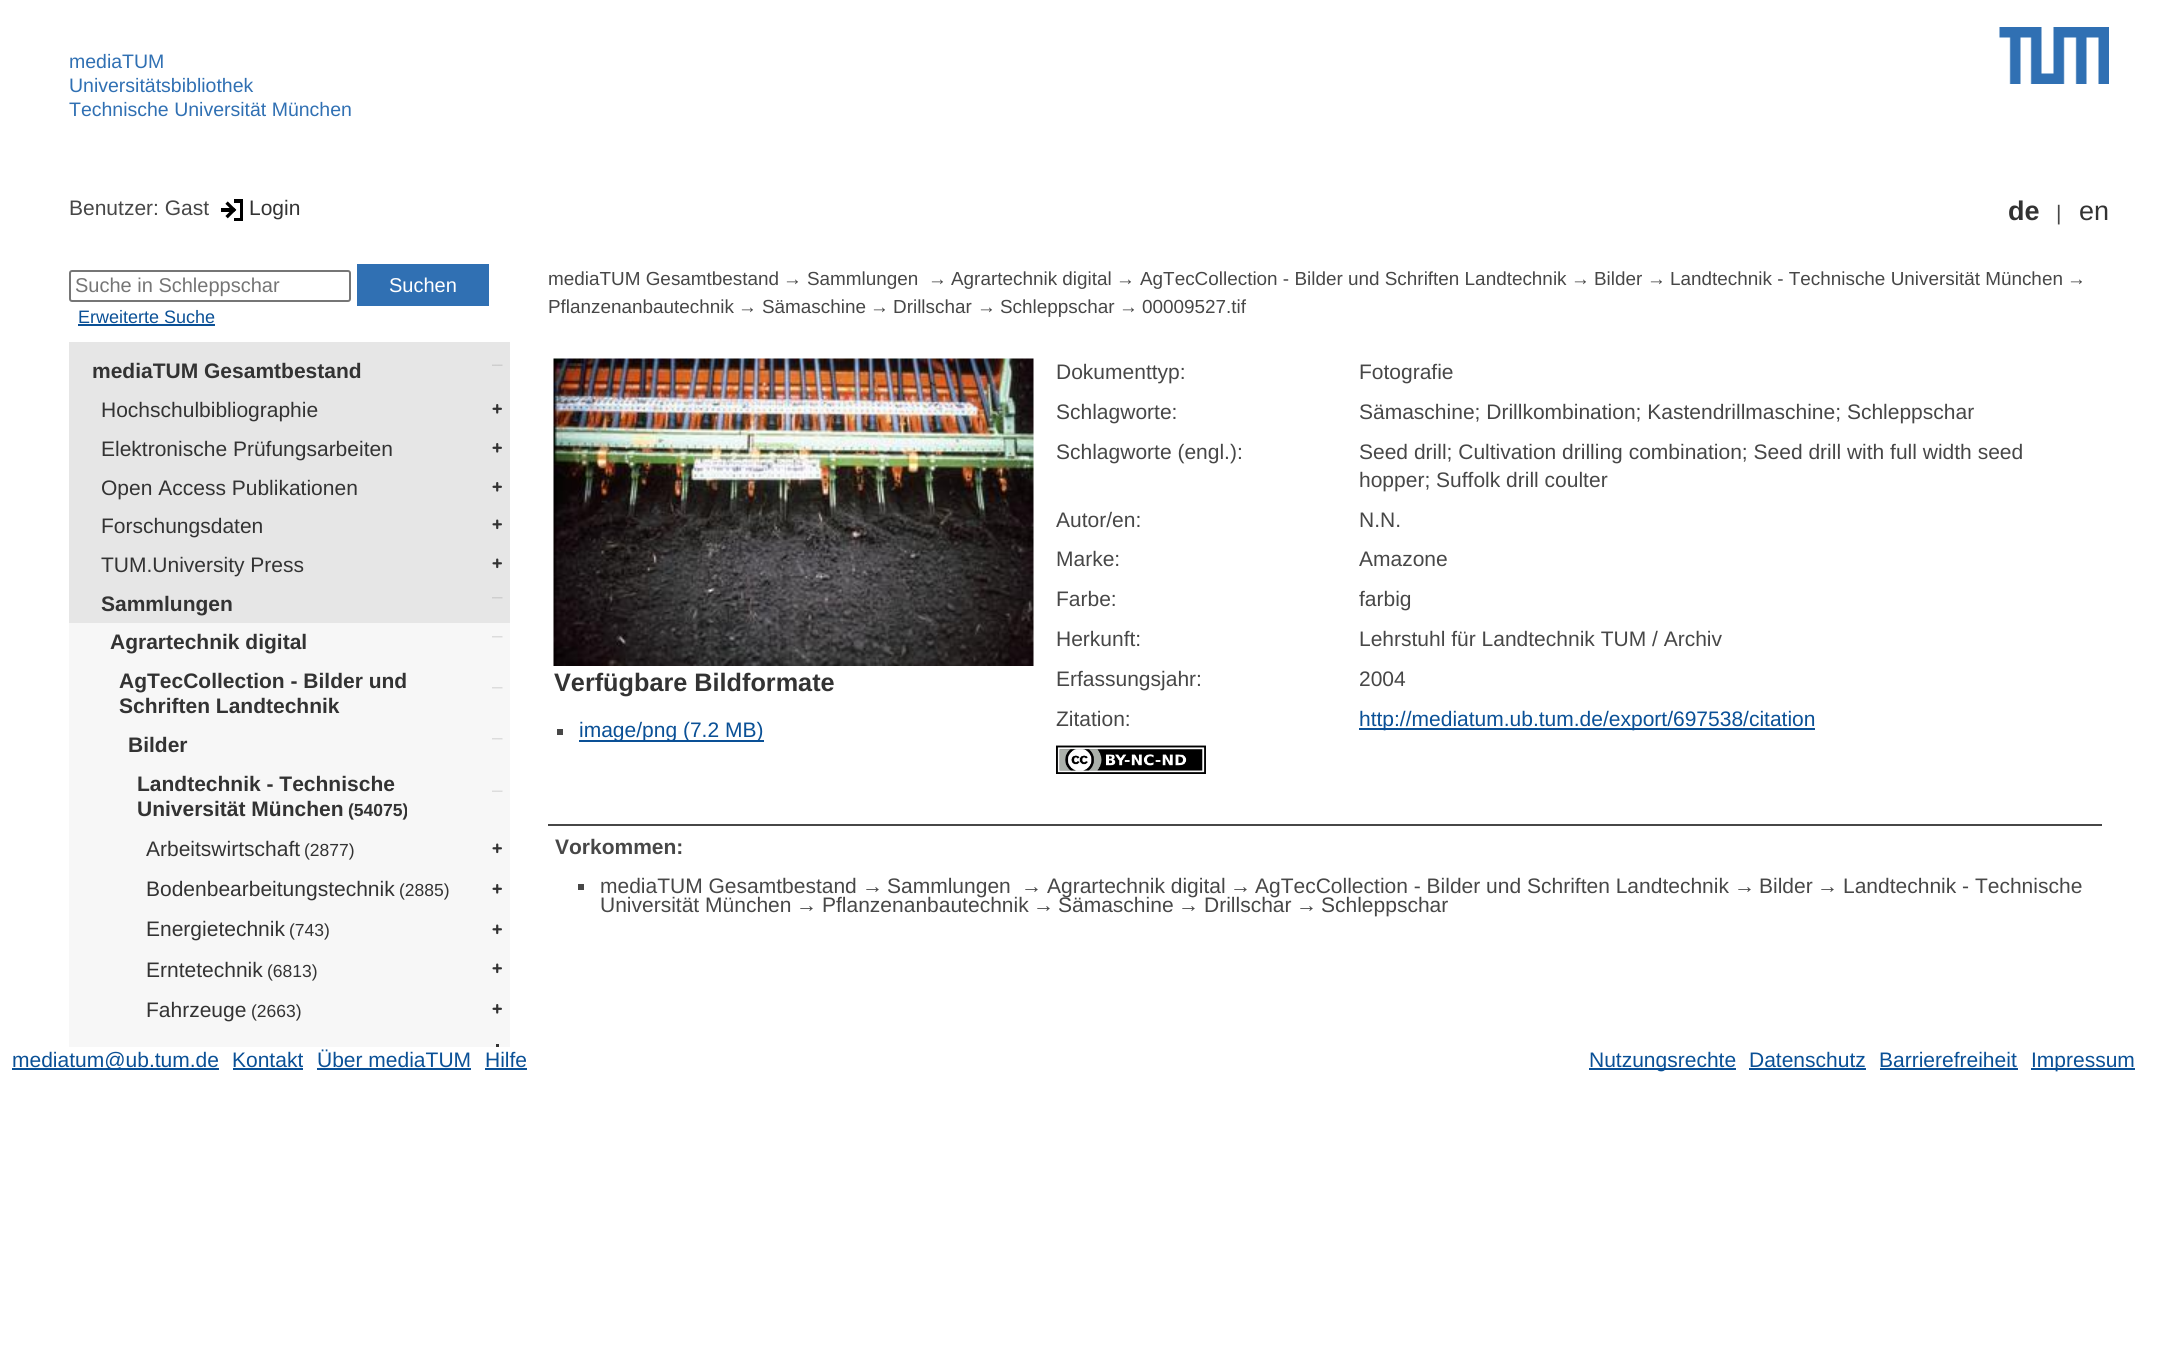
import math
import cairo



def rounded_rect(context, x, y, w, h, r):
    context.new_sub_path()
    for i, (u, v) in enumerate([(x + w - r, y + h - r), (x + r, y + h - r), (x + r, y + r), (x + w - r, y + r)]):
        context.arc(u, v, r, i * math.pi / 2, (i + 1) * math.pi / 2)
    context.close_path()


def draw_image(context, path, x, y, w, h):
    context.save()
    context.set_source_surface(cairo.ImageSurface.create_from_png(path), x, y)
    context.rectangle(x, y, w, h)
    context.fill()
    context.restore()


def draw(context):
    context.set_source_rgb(1, 1, 1)
    context.paint()
    draw_image(context, "images/1.png", 1999, 27, 110, 57)
    draw_image(context, "images/2.png", 221, 199, 22, 22)
    rounded_rect(context, 70, 271, 280, 30, 2)
    context.set_source_rgb(118 / 255, 118 / 255, 118 / 255)
    context.stroke()
    context.set_source_rgb(48 / 255, 112 / 255, 179 / 255)
    context.rectangle(357, 264, 132, 42)
    context.fill()
    context.set_source_rgb(10 / 255, 80 / 255, 150 / 255)
    context.rectangle(78, 324, 137, 2)
    context.fill()
    context.set_source_rgb(230 / 255, 230 / 255, 230 / 255)
    context.rectangle(69, 342, 441, 281)
    context.fill()
    draw_image(context, "images/3.png", 492, 364, 11, 2)
    draw_image(context, "images/4.png", 492, 404, 10, 10)
    draw_image(context, "images/4.png", 492, 443, 10, 10)
    draw_image(context, "images/4.png", 492, 482, 10, 10)
    draw_image(context, "images/5.png", 492, 519, 10, 11)
    draw_image(context, "images/5.png", 492, 558, 10, 11)
    draw_image(context, "images/6.png", 492, 597, 11, 2)
    context.set_source_rgb(247 / 255, 247 / 255, 247 / 255)
    context.rectangle(69, 623, 441, 424)
    context.fill()
    draw_image(context, "images/7.png", 492, 636, 11, 2)
    draw_image(context, "images/7.png", 492, 687, 11, 2)
    draw_image(context, "images/8.png", 492, 738, 11, 2)
    draw_image(context, "images/9.png", 492, 790, 11, 2)
    draw_image(context, "images/10.png", 492, 843, 10, 11)
    draw_image(context, "images/11.png", 492, 884, 10, 10)
    draw_image(context, "images/10.png", 492, 924, 10, 11)
    draw_image(context, "images/10.png", 492, 963, 10, 11)
    draw_image(context, "images/11.png", 492, 1004, 10, 10)
    context.set_source_rgb(51 / 255, 51 / 255, 51 / 255)
    context.rectangle(496, 1044, 3, 3)
    context.fill()
    draw_image(context, "images/12.png", 553, 358, 481, 308)
    context.set_source_rgb(71 / 255, 71 / 255, 71 / 255)
    context.rectangle(557, 729, 6, 6)
    context.fill()
    context.set_source_rgb(10 / 255, 80 / 255, 150 / 255)
    context.rectangle(579, 740, 185, 2)
    context.fill()
    context.rectangle(1359, 728, 456, 2)
    context.fill()
    draw_image(context, "images/13.png", 1056, 745, 150, 29)
    context.set_source_rgb(71 / 255, 71 / 255, 71 / 255)
    context.rectangle(548, 824, 1554, 2)
    context.fill()
    context.rectangle(578, 884, 6, 6)
    context.fill()
    context.set_source_rgb(10 / 255, 80 / 255, 150 / 255)
    context.rectangle(12, 1068, 207, 2)
    context.fill()
    context.rectangle(233, 1068, 70, 2)
    context.fill()
    context.rectangle(317, 1068, 154, 2)
    context.fill()
    context.rectangle(485, 1068, 42, 2)
    context.fill()
    context.rectangle(1589, 1068, 147, 2)
    context.fill()
    context.rectangle(1749, 1068, 117, 2)
    context.fill()
    context.rectangle(1880, 1068, 138, 2)
    context.fill()
    context.rectangle(2031, 1068, 104, 2)
    context.fill()
    context.select_font_face("Liberation Sans")
    context.set_font_size(19.5)
    context.set_source_rgb(48 / 255, 112 / 255, 179 / 255)
    context.move_to(69, 68)
    context.show_text("mediaTUM")
    context.move_to(69, 92)
    context.show_text("Universitätsbibliothek")
    context.move_to(69, 116)
    context.show_text("Technische Universität München")
    context.set_font_size(21)
    context.set_source_rgb(71 / 255, 71 / 255, 71 / 255)
    context.move_to(69, 215)
    context.show_text("Benutzer: Gast")
    context.set_source_rgb(51 / 255, 51 / 255, 51 / 255)
    context.move_to(249, 215)
    context.show_text("Login")
    context.select_font_face("Liberation Sans", cairo.FontSlant.NORMAL, cairo.FontWeight.BOLD)
    context.set_font_size(27)
    context.move_to(2008, 220)
    context.show_text("de")
    context.select_font_face("Liberation Sans")
    context.set_font_size(21)
    context.set_source_rgb(71 / 255, 71 / 255, 71 / 255)
    context.move_to(2056, 220)
    context.show_text("|")
    context.set_font_size(27)
    context.set_source_rgb(51 / 255, 51 / 255, 51 / 255)
    context.move_to(2079, 220)
    context.show_text("en")
    context.set_font_size(20)
    context.set_source_rgb(117 / 255, 117 / 255, 117 / 255)
    context.move_to(75, 292)
    context.show_text("Suche in Schleppschar")
    context.set_source_rgb(1, 1, 1)
    context.move_to(389, 292)
    context.show_text("Suchen")
    context.set_font_size(18)
    context.set_source_rgb(10 / 255, 80 / 255, 150 / 255)
    context.move_to(78, 323)
    context.show_text("Erweiterte Suche")
    context.select_font_face("Liberation Sans", cairo.FontSlant.NORMAL, cairo.FontWeight.BOLD)
    context.set_font_size(21)
    context.set_source_rgb(51 / 255, 51 / 255, 51 / 255)
    context.move_to(92, 378)
    context.show_text("mediaTUM Gesamtbestand")
    context.select_font_face("Liberation Sans")
    context.move_to(101, 417)
    context.show_text("Hochschulbibliographie")
    context.move_to(101, 456)
    context.show_text("Elektronische Prüfungsarbeiten")
    context.move_to(101, 495)
    context.show_text("Open Access Publikationen")
    context.move_to(101, 533)
    context.show_text("Forschungsdaten")
    context.move_to(101, 572)
    context.show_text("TUM.University Press")
    context.select_font_face("Liberation Sans", cairo.FontSlant.NORMAL, cairo.FontWeight.BOLD)
    context.move_to(101, 611)
    context.show_text("Sammlungen")
    context.move_to(110, 649)
    context.show_text("Agrartechnik digital")
    context.move_to(119, 688)
    context.show_text("AgTecCollection - Bilder und")
    context.move_to(119, 713)
    context.show_text("Schriften Landtechnik")
    context.move_to(128, 752)
    context.show_text("Bilder")
    context.move_to(137, 791)
    context.show_text("Landtechnik - Technische")
    context.move_to(137, 816)
    context.show_text("Universität München")
    context.set_font_size(17.5)
    context.move_to(348, 816)
    context.show_text("(54075)")
    context.select_font_face("Liberation Sans")
    context.set_font_size(21)
    context.move_to(146, 856)
    context.show_text("Arbeitswirtschaft")
    context.set_font_size(17.5)
    context.move_to(304, 856)
    context.show_text("(2877)")
    context.set_font_size(21)
    context.move_to(146, 896)
    context.show_text("Bodenbearbeitungstechnik")
    context.set_font_size(17.5)
    context.move_to(399, 896)
    context.show_text("(2885)")
    context.set_font_size(21)
    context.move_to(146, 936)
    context.show_text("Energietechnik")
    context.set_font_size(17.5)
    context.move_to(289, 936)
    context.show_text("(743)")
    context.set_font_size(21)
    context.move_to(146, 977)
    context.show_text("Erntetechnik")
    context.set_font_size(17.5)
    context.move_to(267, 977)
    context.show_text("(6813)")
    context.set_font_size(21)
    context.move_to(146, 1017)
    context.show_text("Fahrzeuge")
    context.set_font_size(17.5)
    context.move_to(251, 1017)
    context.show_text("(2663)")
    context.set_font_size(18.9)
    context.set_source_rgb(71 / 255, 71 / 255, 71 / 255)
    context.move_to(548, 285)
    context.show_text("mediaTUM Gesamtbestand")
    context.move_to(783, 285)
    context.show_text("→")
    context.move_to(807, 285)
    context.show_text("Sammlungen")
    context.move_to(928, 285)
    context.show_text("→")
    context.move_to(951, 285)
    context.show_text("Agrartechnik digital")
    context.move_to(1116, 285)
    context.show_text("→")
    context.move_to(1140, 285)
    context.show_text("AgTecCollection - Bilder und Schriften Landtechnik")
    context.move_to(1571, 285)
    context.show_text("→")
    context.move_to(1594, 285)
    context.show_text("Bilder")
    context.move_to(1647, 285)
    context.show_text("→")
    context.move_to(1670, 285)
    context.show_text("Landtechnik - Technische Universität München")
    context.move_to(2067, 285)
    context.show_text("→")
    context.move_to(548, 313)
    context.show_text("Pflanzenanbautechnik")
    context.move_to(738, 313)
    context.show_text("→")
    context.move_to(762, 313)
    context.show_text("Sämaschine")
    context.move_to(870, 313)
    context.show_text("→")
    context.move_to(893, 313)
    context.show_text("Drillschar")
    context.move_to(977, 313)
    context.show_text("→")
    context.move_to(1000, 313)
    context.show_text("Schleppschar")
    context.move_to(1119, 313)
    context.show_text("→")
    context.move_to(1142, 313)
    context.show_text("00009527.tif")
    context.select_font_face("Liberation Sans", cairo.FontSlant.NORMAL, cairo.FontWeight.BOLD)
    context.set_font_size(25.25)
    context.set_source_rgb(51 / 255, 51 / 255, 51 / 255)
    context.move_to(554, 691)
    context.show_text("Verfügbare Bildformate")
    context.select_font_face("Liberation Sans")
    context.set_font_size(21)
    context.set_source_rgb(10 / 255, 80 / 255, 150 / 255)
    context.move_to(579, 737)
    context.show_text("image/png (7.2 MB)")
    context.set_source_rgb(71 / 255, 71 / 255, 71 / 255)
    context.move_to(1056, 379)
    context.show_text("Dokumenttyp:")
    context.move_to(1359, 379)
    context.show_text("Fotografie")
    context.move_to(1056, 419)
    context.show_text("Schlagworte:")
    context.move_to(1359, 419)
    context.show_text("Sämaschine; Drillkombination; Kastendrillmaschine; Schleppschar")
    context.move_to(1056, 459)
    context.show_text("Schlagworte (engl.):")
    context.move_to(1359, 459)
    context.show_text("Seed drill; Cultivation drilling combination; Seed drill with full width seed")
    context.move_to(1359, 487)
    context.show_text("hopper; Suffolk drill coulter")
    context.move_to(1056, 527)
    context.show_text("Autor/en:")
    context.move_to(1359, 527)
    context.show_text("N.N.")
    context.move_to(1056, 566)
    context.show_text("Marke:")
    context.move_to(1359, 566)
    context.show_text("Amazone")
    context.move_to(1056, 606)
    context.show_text("Farbe:")
    context.move_to(1359, 606)
    context.show_text("farbig")
    context.move_to(1056, 646)
    context.show_text("Herkunft:")
    context.move_to(1359, 646)
    context.show_text("Lehrstuhl für Landtechnik TUM / Archiv")
    context.move_to(1056, 686)
    context.show_text("Erfassungsjahr:")
    context.move_to(1359, 686)
    context.show_text("2004")
    context.move_to(1056, 726)
    context.show_text("Zitation:")
    context.set_source_rgb(10 / 255, 80 / 255, 150 / 255)
    context.move_to(1359, 726)
    context.show_text("http://mediatum.ub.tum.de/export/697538/citation")
    context.select_font_face("Liberation Sans", cairo.FontSlant.NORMAL, cairo.FontWeight.BOLD)
    context.set_source_rgb(71 / 255, 71 / 255, 71 / 255)
    context.move_to(555, 854)
    context.show_text("Vorkommen:")
    context.select_font_face("Liberation Sans")
    context.move_to(600, 893)
    context.show_text("mediaTUM Gesamtbestand")
    context.move_to(862, 893)
    context.show_text("→")
    context.move_to(887, 893)
    context.show_text("Sammlungen")
    context.move_to(1021, 893)
    context.show_text("→")
    context.move_to(1047, 893)
    context.show_text("Agrartechnik digital")
    context.move_to(1230, 893)
    context.show_text("→")
    context.move_to(1255, 893)
    context.show_text("AgTecCollection - Bilder und Schriften Landtechnik")
    context.move_to(1734, 893)
    context.show_text("→")
    context.move_to(1759, 893)
    context.show_text("Bilder")
    context.move_to(1817, 893)
    context.show_text("→")
    context.move_to(1843, 893)
    context.show_text("Landtechnik - Technische")
    context.move_to(600, 912)
    context.show_text("Universität München")
    context.move_to(796, 912)
    context.show_text("→")
    context.move_to(822, 912)
    context.show_text("Pflanzenanbautechnik")
    context.move_to(1033, 912)
    context.show_text("→")
    context.move_to(1058, 912)
    context.show_text("Sämaschine")
    context.move_to(1178, 912)
    context.show_text("→")
    context.move_to(1204, 912)
    context.show_text("Drillschar")
    context.move_to(1296, 912)
    context.show_text("→")
    context.move_to(1321, 912)
    context.show_text("Schleppschar")
    context.set_source_rgb(10 / 255, 80 / 255, 150 / 255)
    context.move_to(12, 1067)
    context.show_text("mediatum@ub.tum.de")
    context.move_to(232, 1067)
    context.show_text("Kontakt")
    context.move_to(317, 1067)
    context.show_text("Über mediaTUM")
    context.move_to(485, 1067)
    context.show_text("Hilfe")
    context.move_to(1589, 1067)
    context.show_text("Nutzungsrechte")
    context.move_to(1749, 1067)
    context.show_text("Datenschutz")
    context.move_to(1879, 1067)
    context.show_text("Barrierefreiheit")
    context.move_to(2031, 1067)
    context.show_text("Impressum")


surface = cairo.ImageSurface(cairo.Format.RGB24, 2178, 1346)
context = cairo.Context(surface)
options = cairo.FontOptions()
options.set_hint_metrics(cairo.HintMetrics.OFF)
options.set_hint_style(cairo.HintStyle.NONE)
context.set_font_options(options)
context.set_miter_limit(4)
draw(context)
surface.write_to_png("out.png")
